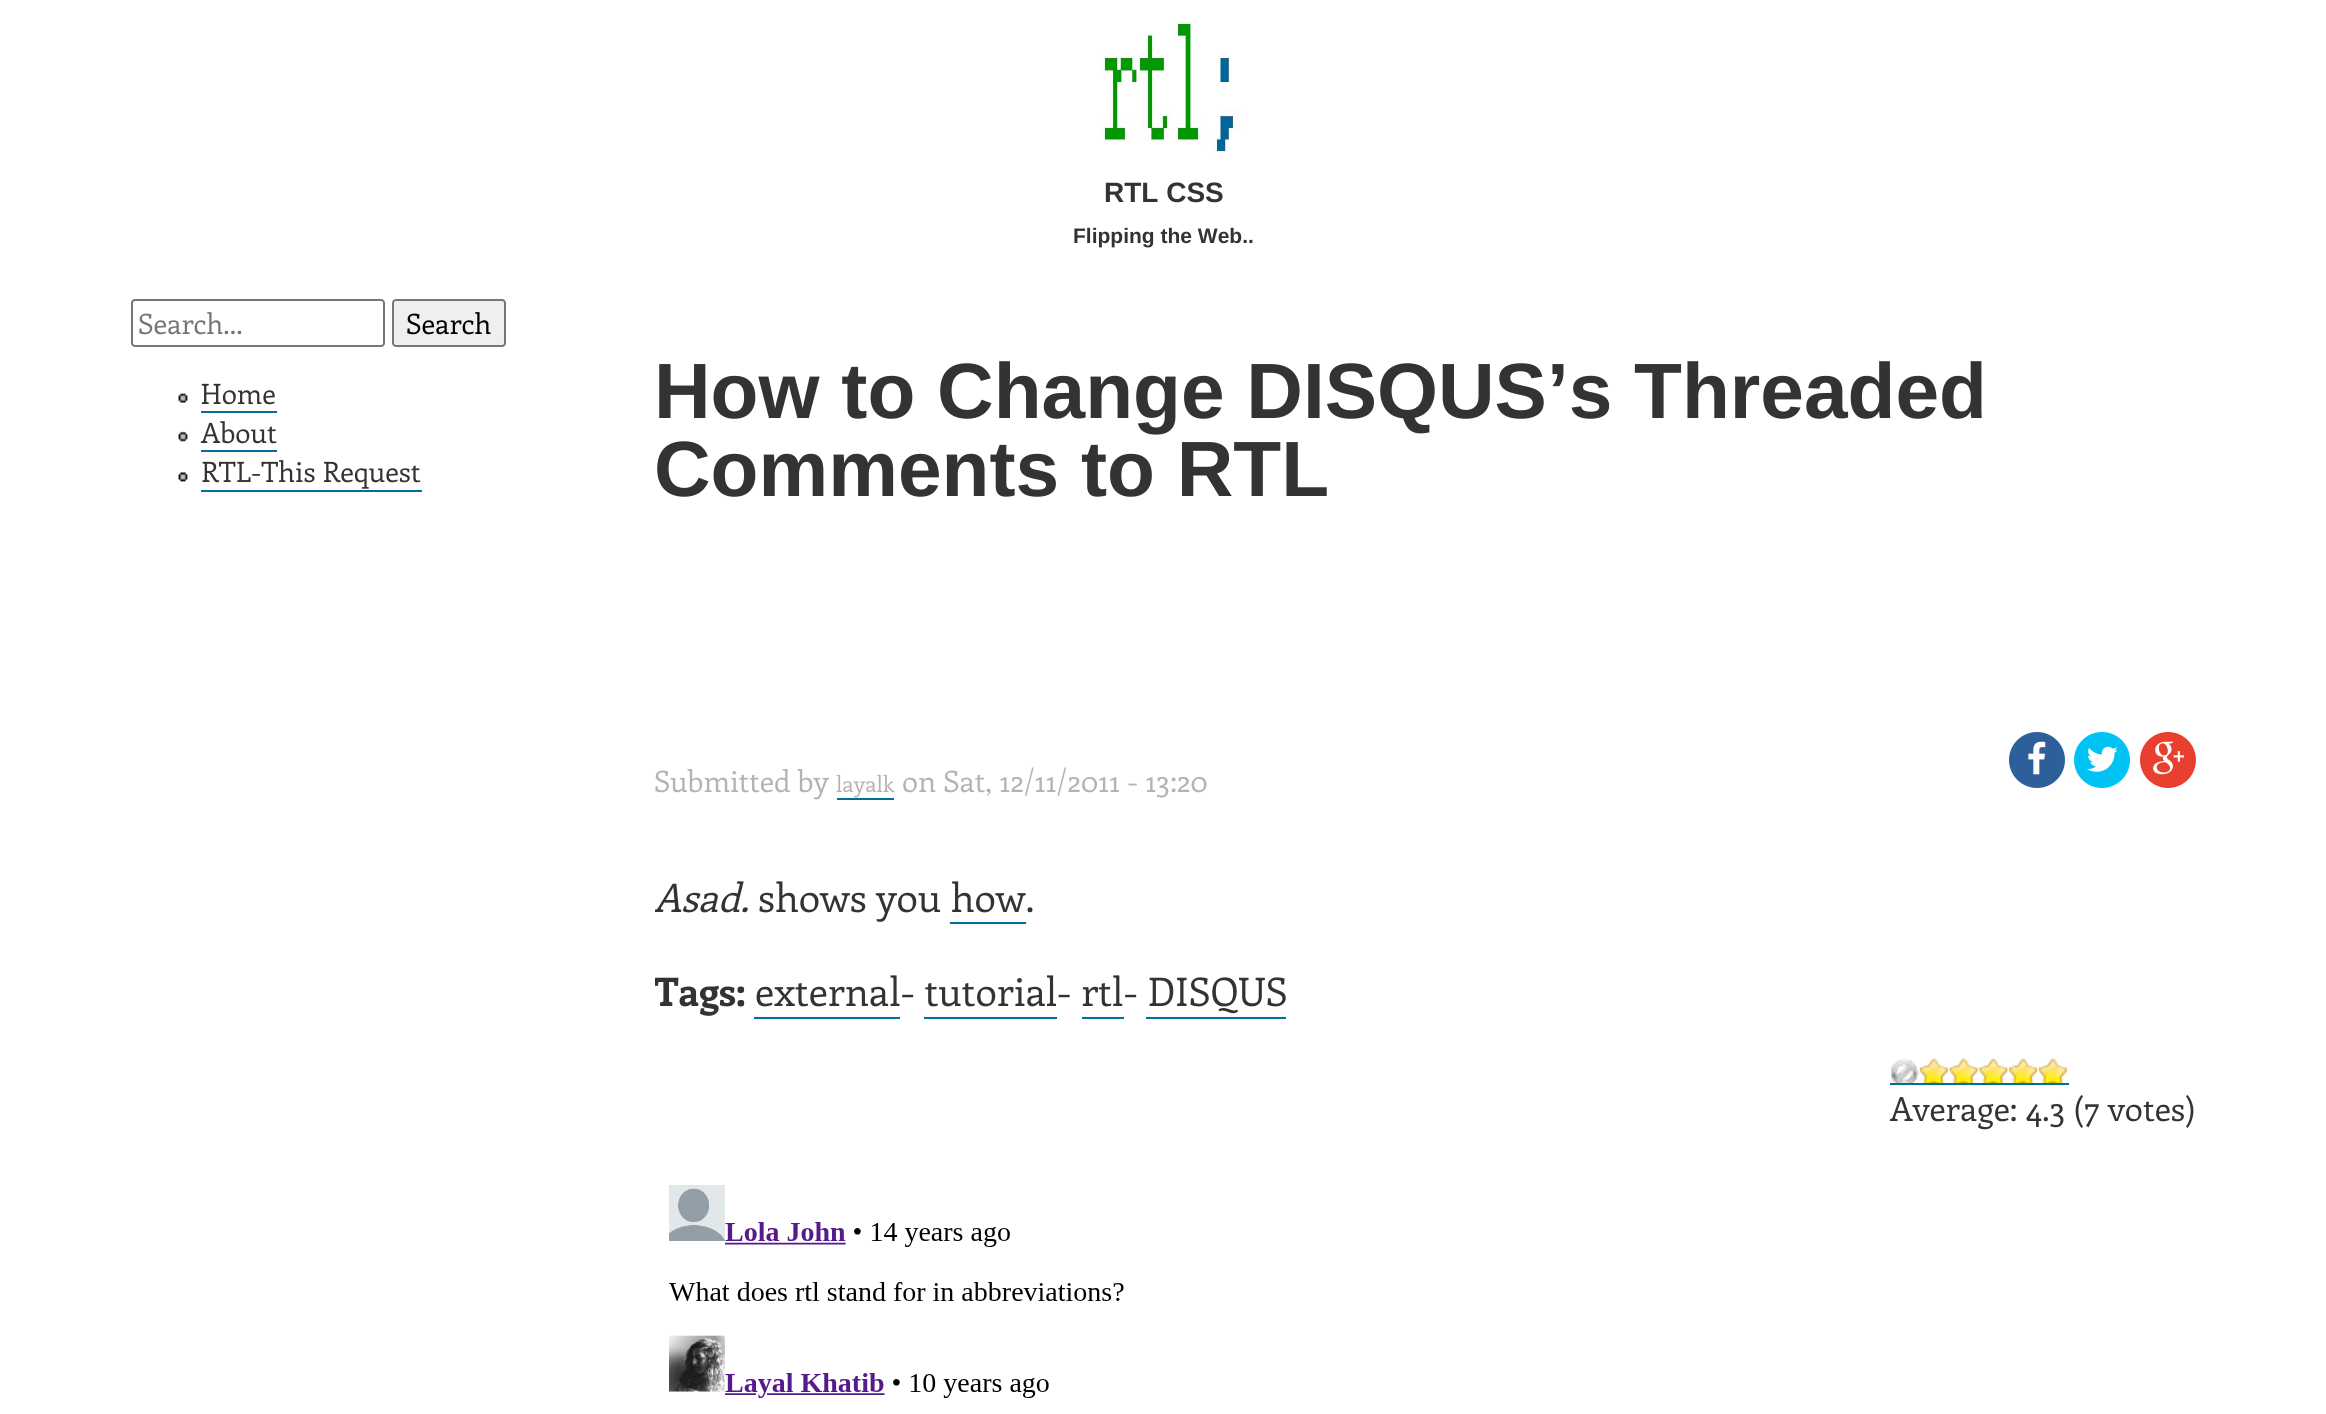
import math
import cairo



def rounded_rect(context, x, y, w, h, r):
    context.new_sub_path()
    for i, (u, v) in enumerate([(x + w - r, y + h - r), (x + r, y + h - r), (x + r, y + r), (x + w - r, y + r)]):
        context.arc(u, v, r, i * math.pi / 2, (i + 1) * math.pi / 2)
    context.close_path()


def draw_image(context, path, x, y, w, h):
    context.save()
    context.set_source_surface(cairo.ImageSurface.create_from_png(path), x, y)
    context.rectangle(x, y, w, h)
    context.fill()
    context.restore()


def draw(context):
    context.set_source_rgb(1, 1, 1)
    context.paint()
    draw_image(context, "images/1.png", 1098, 22, 143, 132)
    rounded_rect(context, 132, 300, 252, 46, 3)
    context.set_source_rgb(118 / 255, 118 / 255, 118 / 255)
    context.stroke()
    context.set_source_rgb(239 / 255, 239 / 255, 239 / 255)
    rounded_rect(context, 393, 300, 112, 46, 3)
    context.fill_preserve()
    context.set_source_rgb(118 / 255, 118 / 255, 118 / 255)
    context.stroke()
    draw_image(context, "images/2.png", 178, 393, 10, 10)
    context.set_source_rgb(0, 111 / 255, 154 / 255)
    context.rectangle(201, 411, 76, 2)
    context.fill()
    draw_image(context, "images/3.png", 178, 431, 10, 11)
    context.rectangle(201, 450, 76, 2)
    context.fill()
    draw_image(context, "images/4.png", 178, 472, 10, 10)
    context.rectangle(201, 490, 221, 2)
    context.fill()
    context.rectangle(837, 798, 57, 2)
    context.fill()
    context.set_source_rgb(45 / 255, 96 / 255, 155 / 255)
    context.arc(2037, 760, 28, 0, 2 * math.pi)
    context.fill()
    draw_image(context, "images/5.png", 2028, 741, 18, 34)
    context.set_source_rgb(0, 195 / 255, 243 / 255)
    context.arc(2102, 760, 28, 0, 2 * math.pi)
    context.fill()
    draw_image(context, "images/6.png", 2087, 746, 31, 26)
    context.set_source_rgb(233 / 255, 63 / 255, 46 / 255)
    context.arc(2168, 760, 28, 0, 2 * math.pi)
    context.fill()
    draw_image(context, "images/7.png", 2153, 741, 32, 34)
    context.set_source_rgb(0, 111 / 255, 154 / 255)
    context.rectangle(950, 922, 76, 2)
    context.fill()
    context.rectangle(754, 1017, 146, 2)
    context.fill()
    context.rectangle(924, 1017, 133, 2)
    context.fill()
    context.rectangle(1082, 1017, 42, 2)
    context.fill()
    context.rectangle(1146, 1017, 140, 2)
    context.fill()
    draw_image(context, "images/8.png", 1890, 1058, 29, 25)
    draw_image(context, "images/9.png", 1890, 1059, 29, 24)
    context.rectangle(1890, 1083, 179, 2)
    context.fill()
    draw_image(context, "images/10.png", 1919, 1058, 29, 25)
    draw_image(context, "images/11.png", 1919, 1058, 29, 25)
    draw_image(context, "images/12.png", 1949, 1058, 29, 25)
    draw_image(context, "images/13.png", 1949, 1058, 29, 25)
    draw_image(context, "images/14.png", 1979, 1058, 29, 25)
    draw_image(context, "images/15.png", 1979, 1058, 29, 25)
    draw_image(context, "images/16.png", 2009, 1058, 28, 25)
    draw_image(context, "images/17.png", 2009, 1058, 28, 25)
    draw_image(context, "images/10.png", 2038, 1058, 29, 25)
    draw_image(context, "images/11.png", 2038, 1058, 29, 25)
    draw_image(context, "images/18.png", 669, 1185, 455, 213)
    context.select_font_face("Liberation Sans", cairo.FontSlant.NORMAL, cairo.FontWeight.BOLD)
    context.set_font_size(28)
    context.set_source_rgb(51 / 255, 51 / 255, 50 / 255)
    context.move_to(1104, 202)
    context.show_text("RTL CSS")
    context.set_font_size(21)
    context.move_to(1073, 243)
    context.show_text("Flipping the Web..")
    context.select_font_face("Enriqueta")
    context.set_font_size(28)
    context.set_source_rgb(117 / 255, 117 / 255, 117 / 255)
    context.move_to(138, 334)
    context.show_text("Search...")
    context.set_source_rgb(0, 0, 0)
    context.move_to(406, 334)
    context.show_text("Search")
    context.set_source_rgb(51 / 255, 51 / 255, 50 / 255)
    context.move_to(201, 404)
    context.show_text("Home")
    context.move_to(201, 443)
    context.show_text("About")
    context.move_to(201, 482)
    context.show_text("RTL-This Request")
    context.select_font_face("Liberation Sans", cairo.FontSlant.NORMAL, cairo.FontWeight.BOLD)
    context.set_font_size(78.4)
    context.move_to(654, 418)
    context.show_text("How to Change DISQUS’s Threaded")
    context.move_to(654, 496)
    context.show_text("Comments to RTL")
    context.select_font_face("Enriqueta")
    context.set_font_size(29.4)
    context.set_source_rgb(179 / 255, 179 / 255, 177 / 255)
    context.move_to(654, 792)
    context.show_text("Submitted by")
    context.set_font_size(22)
    context.move_to(836, 792)
    context.show_text("layalk")
    context.set_font_size(29.4)
    context.move_to(902, 792)
    context.show_text("on Sat, 12/11/2011 - 13:20")
    context.save()
    context.rectangle(655, 831, 1541, 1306)
    context.clip()
    context.select_font_face("Enriqueta", cairo.FontSlant.ITALIC)
    context.set_font_size(39.25)
    context.set_source_rgb(51 / 255, 51 / 255, 50 / 255)
    context.move_to(654, 912)
    context.show_text("Asad.")
    context.restore()
    context.set_font_size(39.25)
    context.set_source_rgb(51 / 255, 51 / 255, 50 / 255)
    context.move_to(758, 912)
    context.show_text("shows you how.")
    context.save()
    context.rectangle(655, 831, 1541, 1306)
    context.clip()
    context.select_font_face("Enriqueta", cairo.FontSlant.NORMAL, cairo.FontWeight.BOLD)
    context.move_to(654, 1006)
    context.show_text("Tags")
    context.restore()
    context.select_font_face("Enriqueta", cairo.FontSlant.NORMAL, cairo.FontWeight.BOLD)
    context.move_to(736, 1006)
    context.show_text(":")
    context.select_font_face("Enriqueta")
    context.move_to(755, 1006)
    context.show_text("external- tutorial- rtl- DISQUS")
    context.set_font_size(33.25)
    context.move_to(1890, 1121)
    context.show_text("Average: 4.3 (7 votes)")


surface = cairo.ImageSurface(cairo.Format.RGB24, 2326, 1414)
context = cairo.Context(surface)
options = cairo.FontOptions()
options.set_hint_metrics(cairo.HintMetrics.OFF)
options.set_hint_style(cairo.HintStyle.NONE)
context.set_font_options(options)
context.set_miter_limit(4)
draw(context)
surface.write_to_png("out.png")
